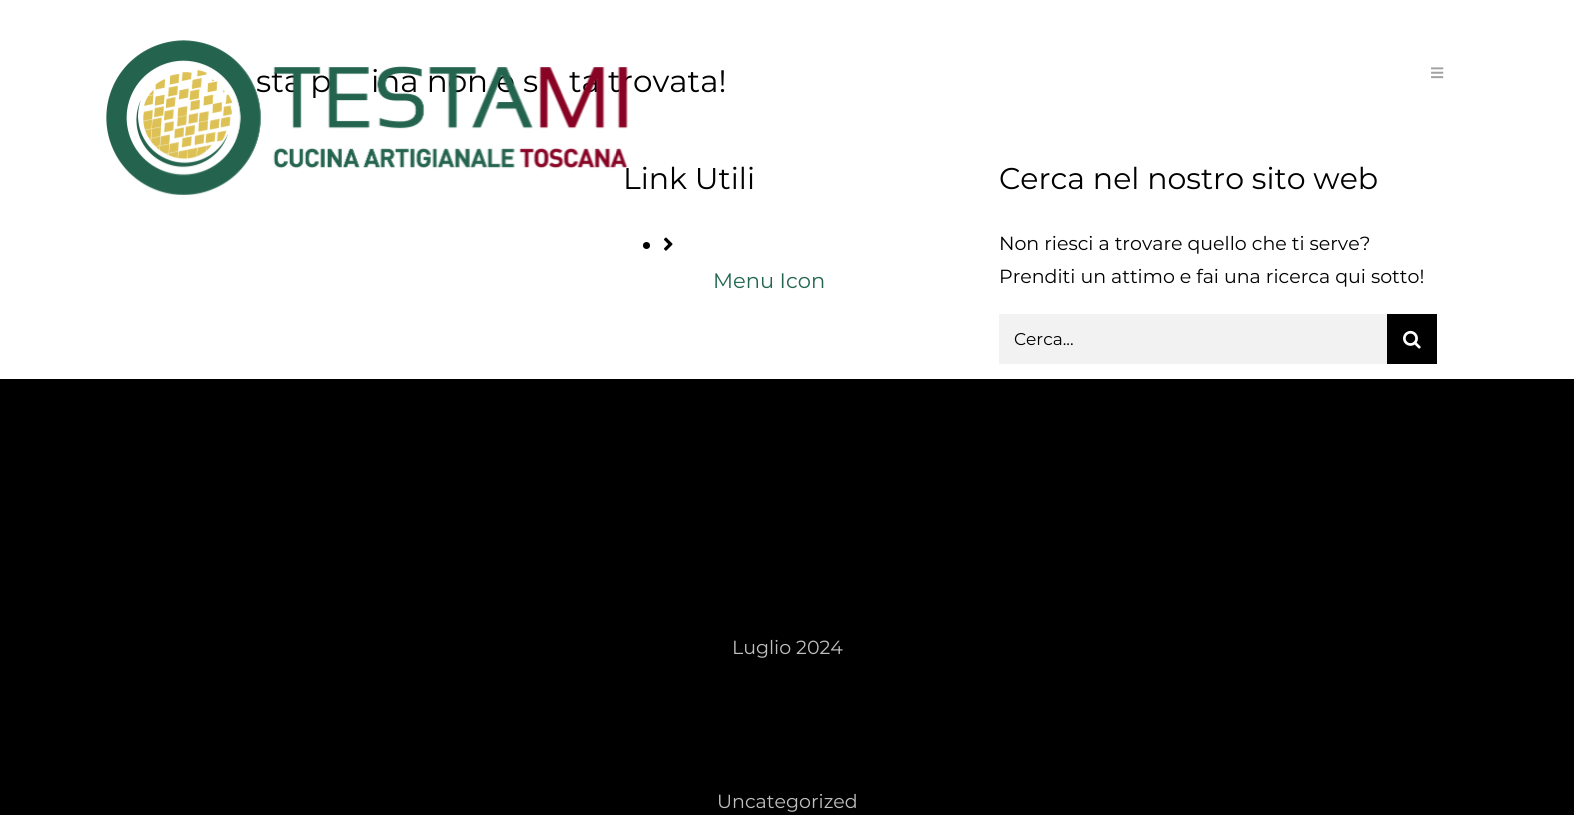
import math
import cairo



def draw_image(context, path, x, y, w, h):
    context.save()
    context.set_source_surface(cairo.ImageSurface.create_from_png(path), x, y)
    context.rectangle(x, y, w, h)
    context.fill()
    context.restore()


def draw(context):
    context.set_source_rgb(1, 1, 1)
    context.paint()
    draw_image(context, "images/2.png", 1431, 67, 13, 12)
    context.set_source_rgb(0, 0, 0)
    context.arc(646.5, 245.5, 3.5, 0, 2 * math.pi)
    context.fill()
    draw_image(context, "images/3.png", 664, 237, 9, 14)
    context.set_source_rgb(242 / 255, 242 / 255, 242 / 255)
    context.rectangle(999, 314, 388, 50)
    context.fill()
    context.set_source_rgb(0, 0, 0)
    context.rectangle(1387, 314, 50, 50)
    context.fill()
    draw_image(context, "images/4.png", 1403, 330, 18, 19)
    context.rectangle(0, 379, 1574, 436)
    context.fill()
    context.select_font_face("Montserrat")
    context.set_font_size(31)
    context.move_to(256, 92)
    context.show_text("sta p")
    context.move_to(371, 92)
    context.show_text("ina non è s")
    context.move_to(569, 92)
    context.show_text("ta trovata!")
    context.set_font_size(30)
    context.move_to(623, 189)
    context.show_text("Link Utili")
    draw_image(context, "images/1.png", 106, 40, 522, 155)
    context.set_font_size(21)
    context.set_source_rgb(33 / 255, 102 / 255, 77 / 255)
    context.move_to(713, 288)
    context.show_text("Menu Icon")
    context.set_font_size(30)
    context.set_source_rgb(0, 0, 0)
    context.move_to(999, 189)
    context.show_text("Cerca nel nostro sito web")
    context.set_font_size(19)
    context.move_to(999, 250)
    context.show_text("Non riesci a trovare quello che ti serve?")
    context.move_to(999, 283)
    context.show_text("Prenditi un attimo e fai una ricerca qui sotto!")
    context.set_font_size(17)
    context.move_to(1014, 345)
    context.show_text("Cerca...")
    context.set_font_size(19)
    context.set_source_rgb(191 / 255, 191 / 255, 191 / 255)
    context.move_to(732, 654)
    context.show_text("Luglio 2024")
    context.move_to(717, 808)
    context.show_text("Uncategorized")


surface = cairo.ImageSurface(cairo.Format.RGB24, 1574, 815)
context = cairo.Context(surface)
options = cairo.FontOptions()
options.set_hint_metrics(cairo.HintMetrics.OFF)
options.set_hint_style(cairo.HintStyle.NONE)
context.set_font_options(options)
context.set_miter_limit(4)
draw(context)
surface.write_to_png("out.png")
